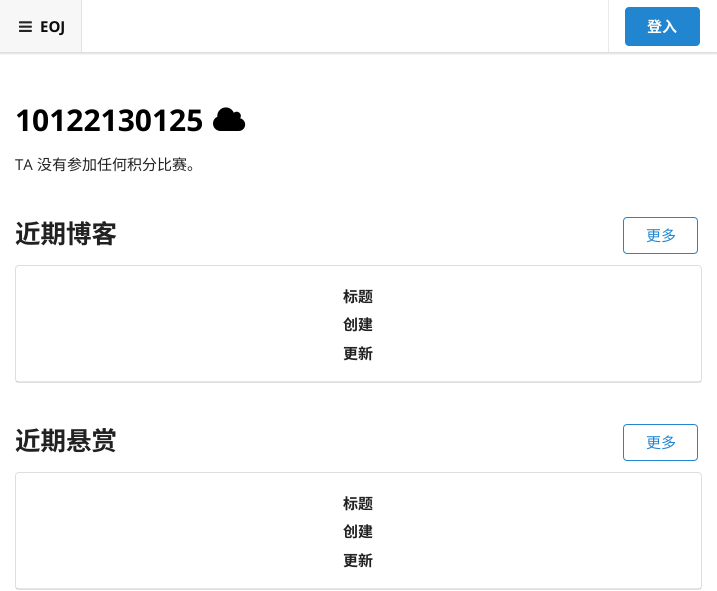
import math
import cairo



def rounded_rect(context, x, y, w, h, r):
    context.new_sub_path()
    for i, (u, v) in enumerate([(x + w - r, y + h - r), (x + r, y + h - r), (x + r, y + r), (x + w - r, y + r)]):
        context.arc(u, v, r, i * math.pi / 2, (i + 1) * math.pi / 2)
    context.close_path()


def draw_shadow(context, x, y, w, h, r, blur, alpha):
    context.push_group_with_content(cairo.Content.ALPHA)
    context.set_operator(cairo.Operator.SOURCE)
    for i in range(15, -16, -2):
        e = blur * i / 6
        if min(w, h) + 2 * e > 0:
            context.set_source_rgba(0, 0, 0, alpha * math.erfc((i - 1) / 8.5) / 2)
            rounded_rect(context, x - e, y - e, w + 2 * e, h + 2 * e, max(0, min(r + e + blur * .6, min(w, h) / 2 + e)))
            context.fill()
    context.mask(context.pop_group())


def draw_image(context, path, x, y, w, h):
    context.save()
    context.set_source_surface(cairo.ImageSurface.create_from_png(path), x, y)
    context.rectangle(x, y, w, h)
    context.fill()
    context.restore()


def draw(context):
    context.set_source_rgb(1, 1, 1)
    context.paint()
    context.save()
    context.rectangle(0, 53, 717, 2)
    context.clip()
    context.set_source_rgb(34 / 255, 36 / 255, 38 / 255)
    draw_shadow(context, 0, 1, 717, 53, 0, 1, 0.15)
    context.restore()
    context.set_source_rgb(222 / 255, 222 / 255, 222 / 255)
    context.rectangle(0, 52, 717, 1)
    context.fill()
    context.set_source_rgb(247 / 255, 247 / 255, 247 / 255)
    context.rectangle(0, 0, 81, 52)
    context.fill()
    draw_image(context, "images/1.png", 19, 21, 13, 11)
    context.set_source_rgb(226 / 255, 226 / 255, 226 / 255)
    context.rectangle(81, 0, 1, 52)
    context.fill()
    context.set_source_rgb(233 / 255, 233 / 255, 233 / 255)
    context.rectangle(608, 0, 1, 52)
    context.fill()
    context.set_source_rgb(33 / 255, 133 / 255, 208 / 255)
    rounded_rect(context, 625, 7, 75, 39, 4)
    context.fill()
    draw_image(context, "images/2.png", 213, 107, 33, 24)
    rounded_rect(context, 623.5, 217.5, 74, 36, 3.5)
    context.set_line_width(1)
    context.stroke()
    rounded_rect(context, 15.5, 265.5, 686, 117, 3.5)
    context.set_source_rgb(222 / 255, 222 / 255, 222 / 255)
    context.stroke()
    context.set_source_rgba(0, 0, 0, 0.1)
    context.rectangle(16, 381, 685, 1)
    context.fill()
    rounded_rect(context, 623.5, 424.5, 74, 36, 3.5)
    context.set_source_rgb(33 / 255, 133 / 255, 208 / 255)
    context.stroke()
    rounded_rect(context, 15.5, 472.5, 686, 117, 3.5)
    context.set_source_rgb(222 / 255, 222 / 255, 222 / 255)
    context.stroke()
    context.set_source_rgba(0, 0, 0, 0.1)
    context.rectangle(16, 588, 685, 1)
    context.fill()
    context.select_font_face("Open Sans", cairo.FontSlant.NORMAL, cairo.FontWeight.BOLD)
    context.set_font_size(15)
    context.set_source_rgb(12 / 255, 12 / 255, 12 / 255)
    context.move_to(40, 32)
    context.show_text("EOJ")
    context.select_font_face("Noto Sans CJK SC", cairo.FontSlant.NORMAL, cairo.FontWeight.BOLD)
    context.set_source_rgb(1, 1, 1)
    context.move_to(647, 32)
    context.show_text("登入")
    context.select_font_face("Open Sans", cairo.FontSlant.NORMAL, cairo.FontWeight.BOLD)
    context.set_font_size(30)
    context.set_source_rgb(0, 0, 0)
    context.move_to(15, 131)
    context.show_text("10122130125")
    context.select_font_face("Open Sans")
    context.set_font_size(15)
    context.set_source_rgb(33 / 255, 33 / 255, 33 / 255)
    context.move_to(15, 170)
    context.show_text("TA")
    context.select_font_face("Noto Sans CJK SC")
    context.move_to(37, 170)
    context.show_text("没有参加任何积分比赛。")
    context.select_font_face("Noto Sans CJK SC", cairo.FontSlant.NORMAL, cairo.FontWeight.BOLD)
    context.set_font_size(25.5)
    context.move_to(15, 243)
    context.show_text("近期博客")
    context.select_font_face("Noto Sans CJK SC")
    context.set_font_size(15)
    context.set_source_rgb(33 / 255, 133 / 255, 208 / 255)
    context.move_to(646, 241)
    context.show_text("更多")
    context.select_font_face("Noto Sans CJK SC", cairo.FontSlant.NORMAL, cairo.FontWeight.BOLD)
    context.set_source_rgb(33 / 255, 33 / 255, 33 / 255)
    context.move_to(343, 302)
    context.show_text("标题")
    context.move_to(343, 330)
    context.show_text("创建")
    context.move_to(343, 359)
    context.show_text("更新")
    context.set_font_size(25.5)
    context.move_to(15, 450)
    context.show_text("近期悬赏")
    context.select_font_face("Noto Sans CJK SC")
    context.set_font_size(15)
    context.set_source_rgb(33 / 255, 133 / 255, 208 / 255)
    context.move_to(646, 448)
    context.show_text("更多")
    context.select_font_face("Noto Sans CJK SC", cairo.FontSlant.NORMAL, cairo.FontWeight.BOLD)
    context.set_source_rgb(33 / 255, 33 / 255, 33 / 255)
    context.move_to(343, 509)
    context.show_text("标题")
    context.move_to(343, 537)
    context.show_text("创建")
    context.move_to(343, 566)
    context.show_text("更新")


surface = cairo.ImageSurface(cairo.Format.RGB24, 717, 591)
context = cairo.Context(surface)
options = cairo.FontOptions()
options.set_hint_metrics(cairo.HintMetrics.OFF)
options.set_hint_style(cairo.HintStyle.NONE)
context.set_font_options(options)
context.set_miter_limit(4)
draw(context)
surface.write_to_png("out.png")
